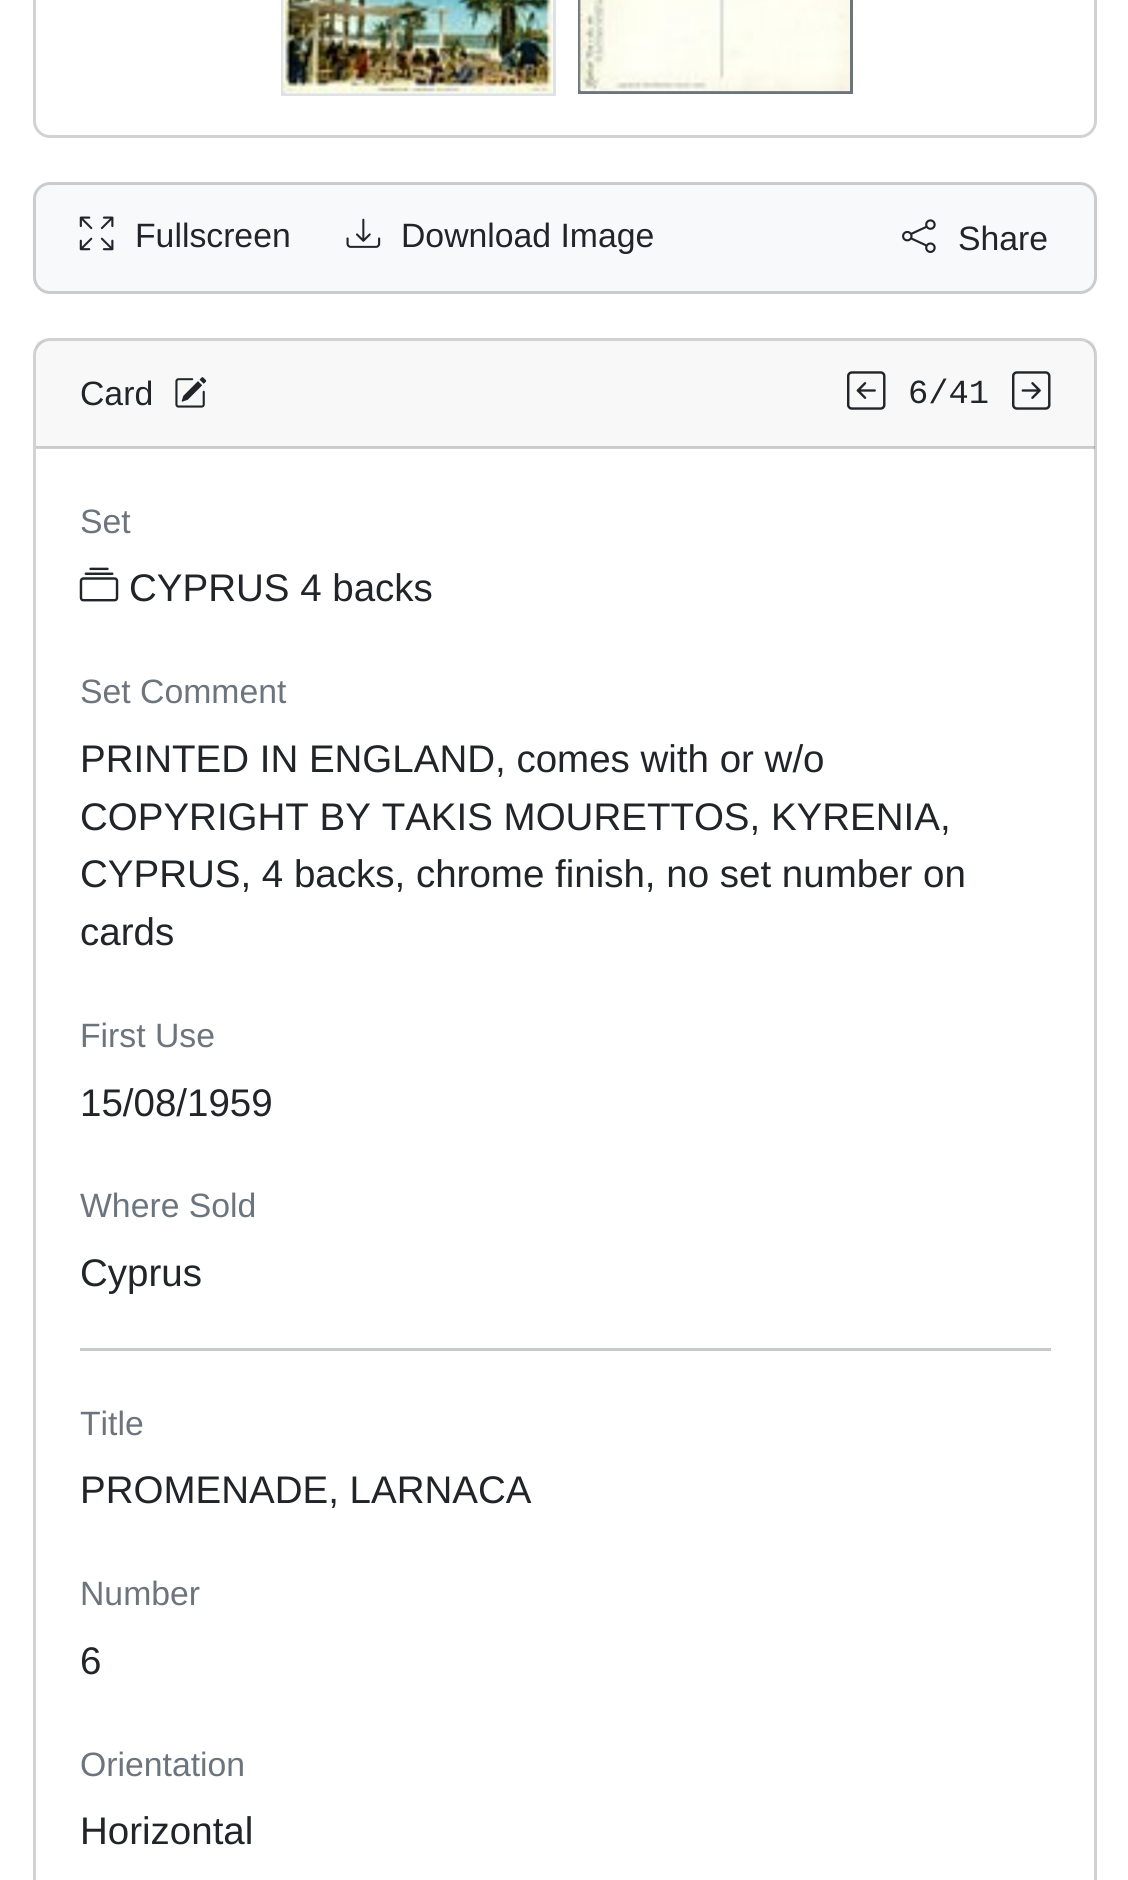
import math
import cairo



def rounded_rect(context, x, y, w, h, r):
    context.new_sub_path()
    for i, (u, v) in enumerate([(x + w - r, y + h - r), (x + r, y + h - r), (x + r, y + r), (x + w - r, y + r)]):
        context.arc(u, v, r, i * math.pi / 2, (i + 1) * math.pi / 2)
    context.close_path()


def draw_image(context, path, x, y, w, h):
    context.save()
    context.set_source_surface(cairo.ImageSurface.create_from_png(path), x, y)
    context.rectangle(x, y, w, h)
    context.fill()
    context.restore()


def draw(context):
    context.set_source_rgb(1, 1, 1)
    context.paint()
    context.new_path()
    context.move_to(34.5, -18.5)
    context.line_to(1095.5, -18.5)
    context.line_to(1095.5, 121)
    context.curve_to(1095.5, 129.5, 1088.5, 136.5, 1080, 136.5)
    context.line_to(50, 136.5)
    context.curve_to(41.5, 136.5, 34.5, 129.5, 34.5, 121)
    context.close_path()
    context.set_source_rgb(210 / 255, 210 / 255, 210 / 255)
    context.set_line_width(3)
    context.stroke()
    context.rectangle(282.5, -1.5, 272, 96)
    context.set_source_rgb(222 / 255, 226 / 255, 230 / 255)
    context.stroke()
    draw_image(context, "images/1.png", 282, 0, 271, 94)
    context.set_source_rgb(248 / 255, 249 / 255, 250 / 255)
    context.rectangle(579.5, -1.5, 272, 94)
    context.fill_preserve()
    context.set_source_rgb(108 / 255, 117 / 255, 125 / 255)
    context.stroke()
    draw_image(context, "images/2.png", 579, 0, 271, 92)
    context.set_source_rgb(248 / 255, 249 / 255, 250 / 255)
    rounded_rect(context, 33, 182, 1064, 112, 17)
    context.fill()
    rounded_rect(context, 34.5, 183.5, 1061, 109, 15.5)
    context.set_source_rgba(0, 0, 0, 0.18)
    context.stroke()
    draw_image(context, "images/3.png", 79, 216, 35, 35)
    draw_image(context, "images/4.png", 346, 218, 35, 30)
    draw_image(context, "images/5.png", 902, 219, 34, 34)
    rounded_rect(context, 34.5, 339.5, 1061, 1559, 15.5)
    context.set_source_rgb(210 / 255, 210 / 255, 210 / 255)
    context.stroke()
    context.set_source_rgba(0, 0, 0, 0.03)
    context.rectangle(36, 341, 1059, 107)
    context.fill()
    context.set_source_rgba(0, 0, 0, 0.18)
    context.rectangle(36, 446, 1059, 3)
    context.fill()
    draw_image(context, "images/6.png", 175, 377, 32, 31)
    draw_image(context, "images/7.png", 847, 371, 39, 39)
    draw_image(context, "images/8.png", 1012, 371, 39, 39)
    draw_image(context, "images/9.png", 79, 567, 40, 35)
    context.set_source_rgb(200 / 255, 201 / 255, 202 / 255)
    context.rectangle(80, 1348, 971, 3)
    context.fill()
    context.select_font_face("Liberation Sans")
    context.set_font_size(33.75)
    context.set_source_rgb(33 / 255, 37 / 255, 41 / 255)
    context.move_to(135, 247)
    context.show_text("Fullscreen")
    context.move_to(401, 247)
    context.show_text("Download Image")
    context.move_to(958, 250)
    context.show_text("Share")
    context.move_to(80, 405)
    context.show_text("Card")
    context.select_font_face("Liberation Mono")
    context.move_to(908, 403)
    context.show_text("6/41")
    context.select_font_face("Liberation Sans")
    context.set_source_rgb(108 / 255, 117 / 255, 125 / 255)
    context.move_to(80, 533)
    context.show_text("Set")
    context.set_font_size(38.5)
    context.set_source_rgb(33 / 255, 37 / 255, 41 / 255)
    context.move_to(129, 601)
    context.show_text("CYPRUS 4 backs")
    context.set_font_size(33.75)
    context.set_source_rgb(108 / 255, 117 / 255, 125 / 255)
    context.move_to(80, 703)
    context.show_text("Set Comment")
    context.set_font_size(38.5)
    context.set_source_rgb(33 / 255, 37 / 255, 41 / 255)
    context.move_to(80, 772)
    context.show_text("PRINTED IN ENGLAND, comes with or w/o")
    context.move_to(80, 830)
    context.show_text("COPYRIGHT BY TAKIS MOURETTOS, KYRENIA,")
    context.move_to(80, 887)
    context.show_text("CYPRUS, 4 backs, chrome finish, no set number on")
    context.move_to(80, 945)
    context.show_text("cards")
    context.set_font_size(33.75)
    context.set_source_rgb(108 / 255, 117 / 255, 125 / 255)
    context.move_to(80, 1047)
    context.show_text("First Use")
    context.set_font_size(38.5)
    context.set_source_rgb(33 / 255, 37 / 255, 41 / 255)
    context.move_to(80, 1116)
    context.show_text("15/08/1959")
    context.set_font_size(33.75)
    context.set_source_rgb(108 / 255, 117 / 255, 125 / 255)
    context.move_to(80, 1217)
    context.show_text("Where Sold")
    context.set_font_size(38.5)
    context.set_source_rgb(33 / 255, 37 / 255, 41 / 255)
    context.move_to(80, 1286)
    context.show_text("Cyprus")
    context.set_font_size(33.75)
    context.set_source_rgb(108 / 255, 117 / 255, 125 / 255)
    context.move_to(80, 1435)
    context.show_text("Title")
    context.set_font_size(38.5)
    context.set_source_rgb(33 / 255, 37 / 255, 41 / 255)
    context.move_to(80, 1503)
    context.show_text("PROMENADE, LARNACA")
    context.set_font_size(33.75)
    context.set_source_rgb(108 / 255, 117 / 255, 125 / 255)
    context.move_to(80, 1605)
    context.show_text("Number")
    context.set_font_size(38.5)
    context.set_source_rgb(33 / 255, 37 / 255, 41 / 255)
    context.move_to(80, 1674)
    context.show_text("6")
    context.set_font_size(33.75)
    context.set_source_rgb(108 / 255, 117 / 255, 125 / 255)
    context.move_to(80, 1776)
    context.show_text("Orientation")
    context.set_font_size(38.5)
    context.set_source_rgb(33 / 255, 37 / 255, 41 / 255)
    context.move_to(80, 1844)
    context.show_text("Horizontal")


surface = cairo.ImageSurface(cairo.Format.RGB24, 1128, 1880)
context = cairo.Context(surface)
options = cairo.FontOptions()
options.set_hint_metrics(cairo.HintMetrics.OFF)
options.set_hint_style(cairo.HintStyle.NONE)
context.set_font_options(options)
context.set_miter_limit(4)
draw(context)
surface.write_to_png("out.png")
